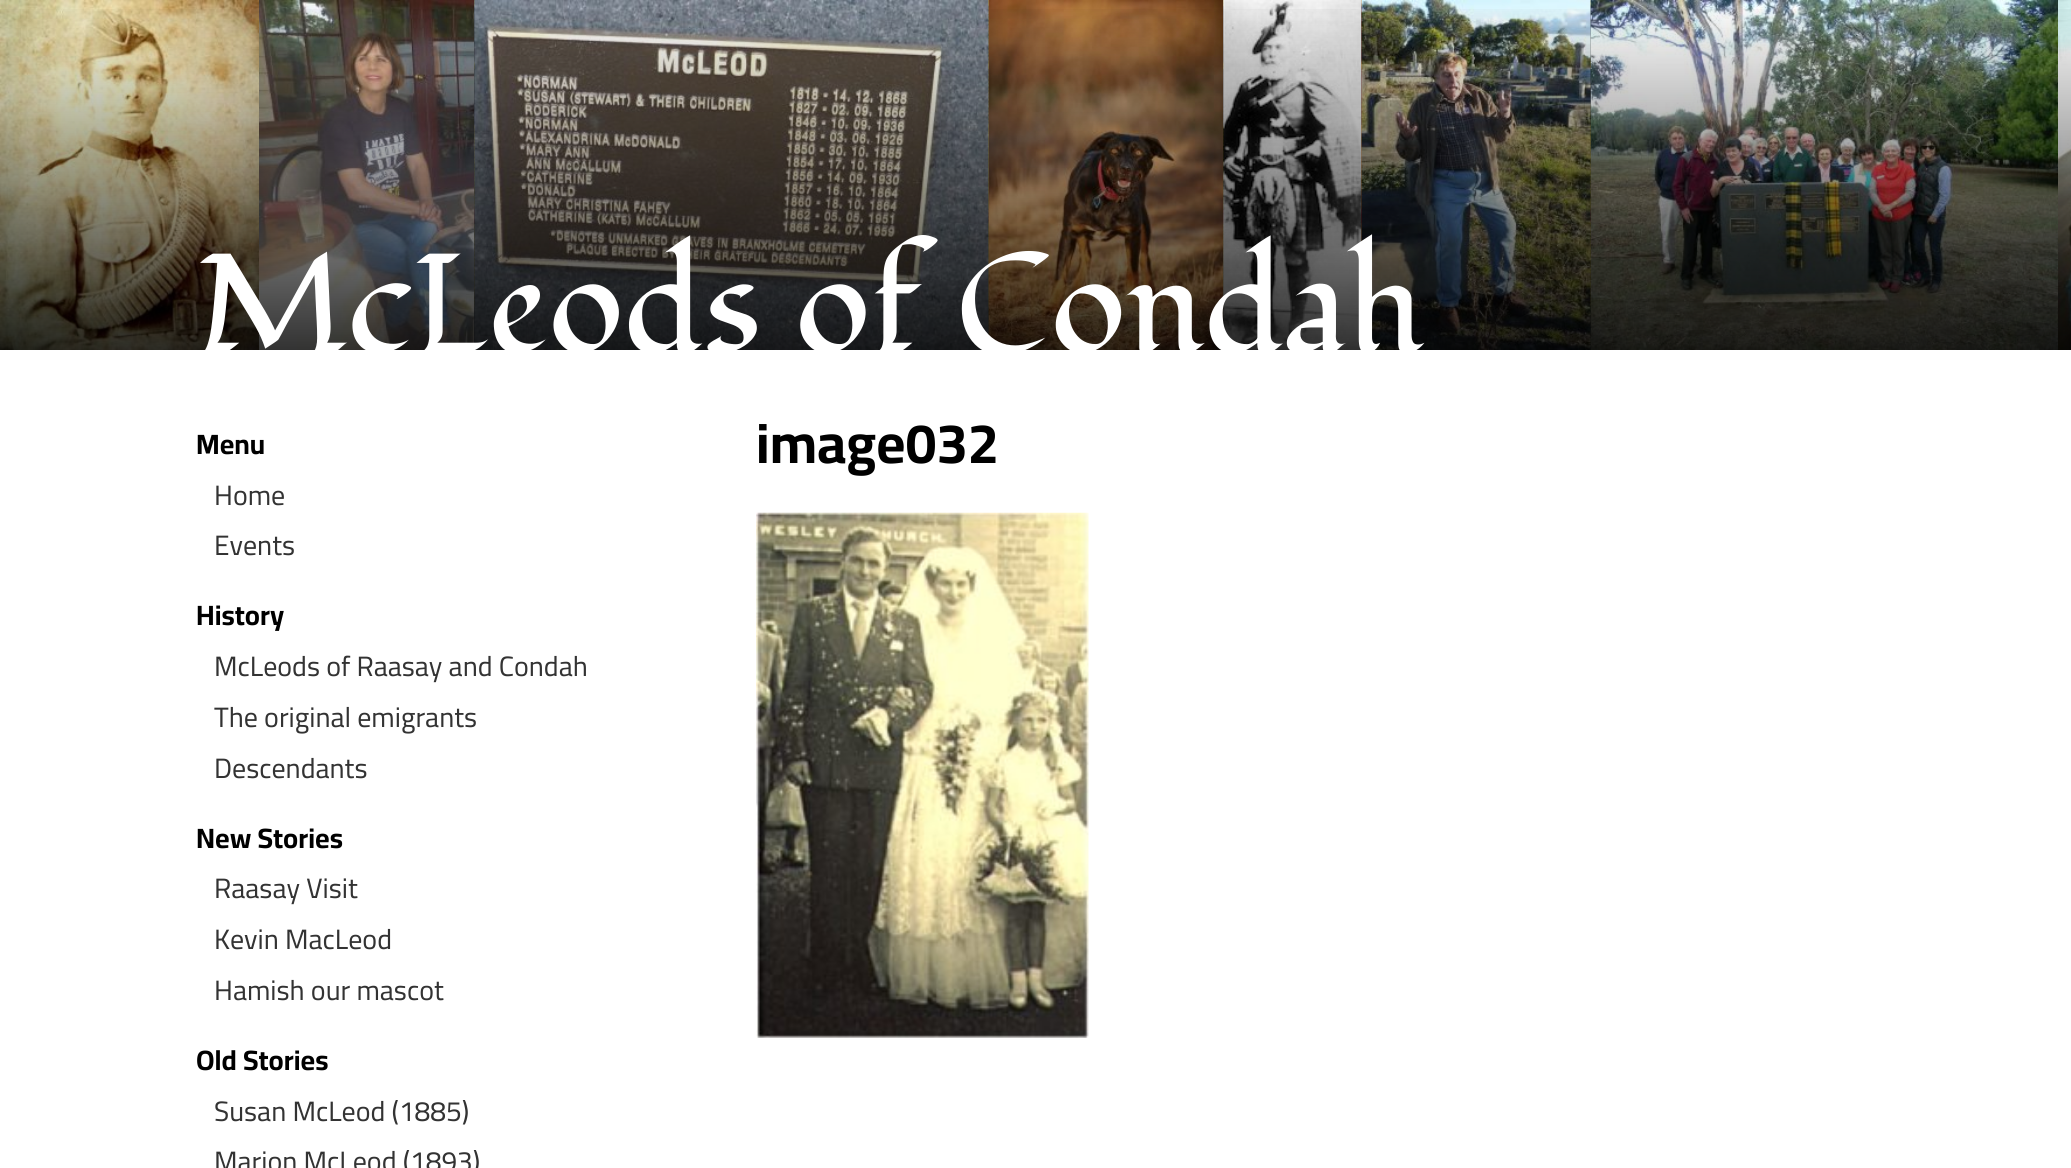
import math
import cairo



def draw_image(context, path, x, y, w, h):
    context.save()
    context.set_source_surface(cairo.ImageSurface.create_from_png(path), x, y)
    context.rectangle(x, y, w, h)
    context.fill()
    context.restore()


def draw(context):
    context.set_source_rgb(1, 1, 1)
    context.paint()
    draw_image(context, "images/1.png", 474, 0, 1117, 350)
    draw_image(context, "images/2.png", 0, 0, 259, 350)
    draw_image(context, "images/3.png", 259, 0, 216, 350)
    draw_image(context, "images/4.png", 474, 0, 515, 350)
    draw_image(context, "images/5.png", 988, 0, 236, 350)
    draw_image(context, "images/6.png", 1223, 0, 139, 350)
    draw_image(context, "images/7.png", 1361, 0, 230, 350)
    draw_image(context, "images/8.png", 1590, 0, 468, 350)
    draw_image(context, "images/9.png", 2058, 0, 13, 350)
    gradient = cairo.LinearGradient(1036, 0, 1036, 350)
    gradient.add_color_stop_rgba(0, 0, 0, 0, 0)
    gradient.add_color_stop_rgba(1, 0, 0, 0, 0.8)
    context.set_source(gradient)
    context.rectangle(0, 9, 2071, 341)
    context.fill()
    draw_image(context, "images/10.png", 756, 512, 333, 526)
    context.select_font_face("Fondamento")
    context.set_font_size(140)
    context.set_source_rgb(1, 1, 1)
    context.move_to(196, 352)
    context.show_text("McLeods of Condah")
    context.select_font_face("Cairo", cairo.FontSlant.NORMAL, cairo.FontWeight.BOLD)
    context.set_font_size(28)
    context.set_source_rgb(0, 0, 0)
    context.move_to(196, 454)
    context.show_text("Menu")
    context.select_font_face("Cairo")
    context.set_source_rgb(51 / 255, 51 / 255, 51 / 255)
    context.move_to(214, 505)
    context.show_text("Home")
    context.move_to(214, 555)
    context.show_text("Events")
    context.select_font_face("Cairo", cairo.FontSlant.NORMAL, cairo.FontWeight.BOLD)
    context.set_source_rgb(0, 0, 0)
    context.move_to(196, 625)
    context.show_text("History")
    context.select_font_face("Cairo")
    context.set_source_rgb(51 / 255, 51 / 255, 51 / 255)
    context.move_to(214, 676)
    context.show_text("McLeods of Raasay and Condah")
    context.move_to(214, 727)
    context.show_text("The original emigrants")
    context.move_to(214, 778)
    context.show_text("Descendants")
    context.select_font_face("Cairo", cairo.FontSlant.NORMAL, cairo.FontWeight.BOLD)
    context.set_source_rgb(0, 0, 0)
    context.move_to(196, 848)
    context.show_text("New Stories")
    context.select_font_face("Cairo")
    context.set_source_rgb(51 / 255, 51 / 255, 51 / 255)
    context.move_to(214, 898)
    context.show_text("Raasay Visit")
    context.move_to(214, 949)
    context.show_text("Kevin MacLeod")
    context.move_to(214, 1000)
    context.show_text("Hamish our mascot")
    context.select_font_face("Cairo", cairo.FontSlant.NORMAL, cairo.FontWeight.BOLD)
    context.set_source_rgb(0, 0, 0)
    context.move_to(196, 1070)
    context.show_text("Old Stories")
    context.select_font_face("Cairo")
    context.set_source_rgb(51 / 255, 51 / 255, 51 / 255)
    context.move_to(214, 1121)
    context.show_text("Susan McLeod (1885)")
    context.move_to(214, 1171)
    context.show_text("Marion McLeod (1893)")
    context.select_font_face("Cairo", cairo.FontSlant.NORMAL, cairo.FontWeight.BOLD)
    context.set_font_size(56)
    context.set_source_rgb(0, 0, 0)
    context.move_to(756, 463)
    context.show_text("image032")


surface = cairo.ImageSurface(cairo.Format.RGB24, 2071, 1168)
context = cairo.Context(surface)
options = cairo.FontOptions()
options.set_hint_metrics(cairo.HintMetrics.OFF)
options.set_hint_style(cairo.HintStyle.NONE)
context.set_font_options(options)
context.set_miter_limit(4)
draw(context)
surface.write_to_png("out.png")
